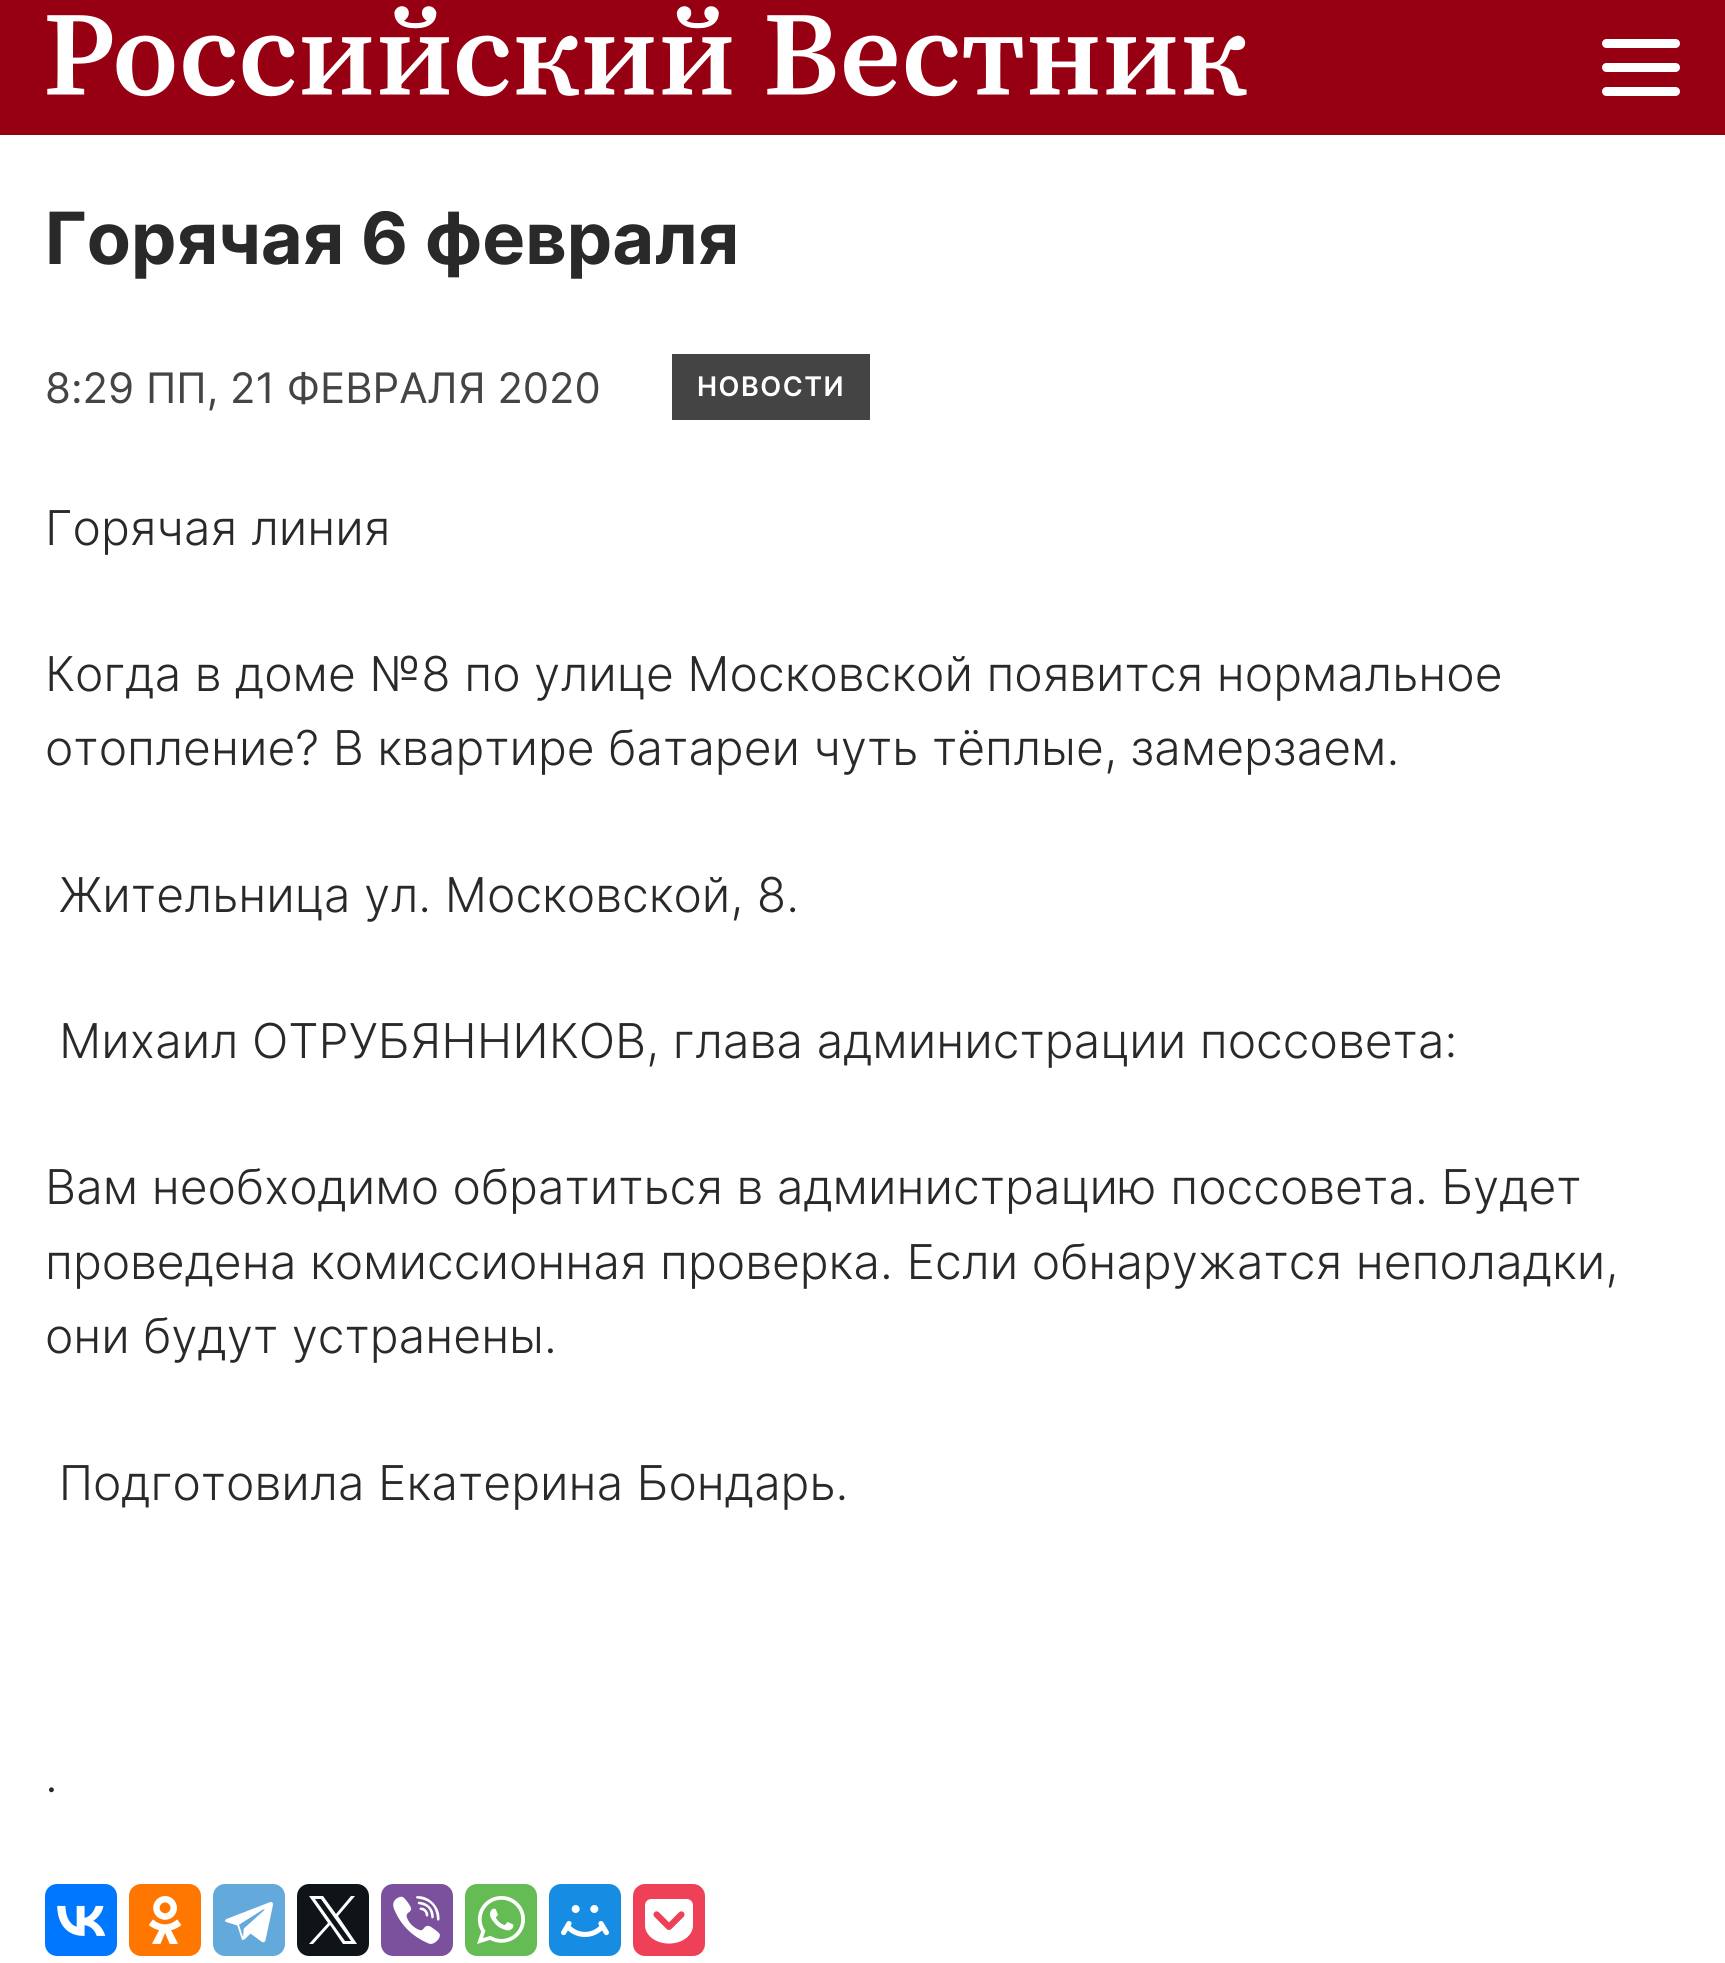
import math
import cairo



def draw_spaced(context, x, y, s, letter, word):
    context.move_to(x, y)
    for ch in s:
        context.show_text(ch)
        context.rel_move_to(letter + word * (ch == ' '), 0)


def rounded_rect(context, x, y, w, h, r):
    context.new_sub_path()
    for i, (u, v) in enumerate([(x + w - r, y + h - r), (x + r, y + h - r), (x + r, y + r), (x + w - r, y + r)]):
        context.arc(u, v, r, i * math.pi / 2, (i + 1) * math.pi / 2)
    context.close_path()


def draw_image(context, path, x, y, w, h):
    context.save()
    context.set_source_surface(cairo.ImageSurface.create_from_png(path), x, y)
    context.rectangle(x, y, w, h)
    context.fill()
    context.restore()


def draw(context):
    context.set_source_rgb(1, 1, 1)
    context.paint()
    context.set_source_rgb(151 / 255, 0, 18 / 255)
    context.rectangle(0, 0, 1725, 135)
    context.fill()
    draw_image(context, "images/1.png", 47, 6, 1200, 91)
    context.set_source_rgb(1, 1, 1)
    rounded_rect(context, 1602, 63, 78, 9, 4.5)
    context.fill()
    rounded_rect(context, 1602, 39, 78, 9, 4.5)
    context.fill()
    rounded_rect(context, 1602, 87, 78, 9, 4.5)
    context.fill()
    context.set_source_rgb(68 / 255, 68 / 255, 68 / 255)
    context.rectangle(672, 354, 198, 66)
    context.fill()
    context.set_source_rgb(0, 119 / 255, 1)
    rounded_rect(context, 45, 1884, 72, 72, 12)
    context.fill()
    draw_image(context, "images/2.png", 57, 1905, 49, 31)
    context.set_source_rgb(1, 119 / 255, 0)
    rounded_rect(context, 129, 1884, 72, 72, 12)
    context.fill()
    draw_image(context, "images/3.png", 149, 1896, 33, 48)
    context.set_source_rgb(100 / 255, 169 / 255, 220 / 255)
    rounded_rect(context, 213, 1884, 72, 72, 12)
    context.fill()
    draw_image(context, "images/4.png", 225, 1902, 48, 41)
    context.set_source_rgb(15 / 255, 20 / 255, 25 / 255)
    rounded_rect(context, 297, 1884, 72, 72, 12)
    context.fill()
    context.set_source_rgb(1, 1, 1)
    context.new_path()
    context.move_to(338, 1916)
    context.line_to(355, 1896)
    context.line_to(351, 1896)
    context.line_to(336, 1914)
    context.line_to(323, 1896)
    context.line_to(309, 1896)
    context.line_to(328, 1923)
    context.line_to(309, 1944)
    context.line_to(313, 1944)
    context.line_to(330, 1925)
    context.line_to(343, 1944)
    context.line_to(357, 1944)
    context.close_path()
    context.move_to(332, 1923)
    context.line_to(315, 1899)
    context.line_to(321, 1899)
    context.line_to(351, 1941)
    context.line_to(345, 1941)
    context.close_path()
    context.fill()
    context.set_source_rgb(123 / 255, 81 / 255, 157 / 255)
    rounded_rect(context, 381, 1884, 72, 72, 12)
    context.fill()
    draw_image(context, "images/5.png", 393, 1896, 47, 48)
    context.set_source_rgb(101 / 255, 188 / 255, 84 / 255)
    rounded_rect(context, 465, 1884, 72, 72, 12)
    context.fill()
    draw_image(context, "images/6.png", 477, 1896, 48, 48)
    context.set_source_rgb(22 / 255, 141 / 255, 226 / 255)
    rounded_rect(context, 549, 1884, 72, 72, 12)
    context.fill()
    draw_image(context, "images/7.png", 561, 1905, 48, 32)
    context.set_source_rgb(238 / 255, 64 / 255, 86 / 255)
    rounded_rect(context, 633, 1884, 72, 72, 12)
    context.fill()
    draw_image(context, "images/8.png", 645, 1899, 48, 45)
    context.select_font_face("Inter", cairo.FontSlant.NORMAL, cairo.FontWeight.BOLD)
    context.set_font_size(72)
    context.set_source_rgb(41 / 255, 41 / 255, 41 / 255)
    context.move_to(45, 264)
    context.show_text("Горячая 6 февраля")
    context.select_font_face("Inter")
    context.set_font_size(42)
    context.set_source_rgb(68 / 255, 68 / 255, 68 / 255)
    context.move_to(45, 403)
    context.show_text("8:29 ПП, 21 ФЕВРАЛЯ 2020")
    context.select_font_face("Inter SemiBold")
    context.set_font_size(27)
    context.set_source_rgb(1, 1, 1)
    draw_spaced(context, 697, 396, "НОВОСТИ", 1.5, 0)
    context.select_font_face("Inter Light")
    context.set_font_size(48)
    context.set_source_rgb(41 / 255, 41 / 255, 41 / 255)
    context.move_to(45, 545)
    context.show_text("Горячая линия")
    context.move_to(45, 691)
    context.show_text("Когда в доме №8 по улице Московской появится нормальное")
    context.move_to(45, 765)
    context.show_text("отопление? В квартире батареи чуть тёплые, замерзаем.")
    context.move_to(59, 912)
    context.show_text("Жительница ул. Московской, 8.")
    context.move_to(59, 1058)
    context.show_text("Михаил ОТРУБЯННИКОВ, глава администрации поссовета:")
    context.move_to(45, 1204)
    context.show_text("Вам необходимо обратиться в администрацию поссовета. Будет")
    context.move_to(45, 1279)
    context.show_text("проведена комиссионная проверка. Если обнаружатся неполадки,")
    context.move_to(45, 1353)
    context.show_text("они будут устранены.")
    context.move_to(59, 1500)
    context.show_text("Подготовила Екатерина Бондарь.")
    context.move_to(45, 1792)
    context.show_text(".")


surface = cairo.ImageSurface(cairo.Format.RGB24, 1725, 1963)
context = cairo.Context(surface)
options = cairo.FontOptions()
options.set_hint_metrics(cairo.HintMetrics.OFF)
options.set_hint_style(cairo.HintStyle.NONE)
context.set_font_options(options)
context.set_miter_limit(4)
draw(context)
surface.write_to_png("out.png")
